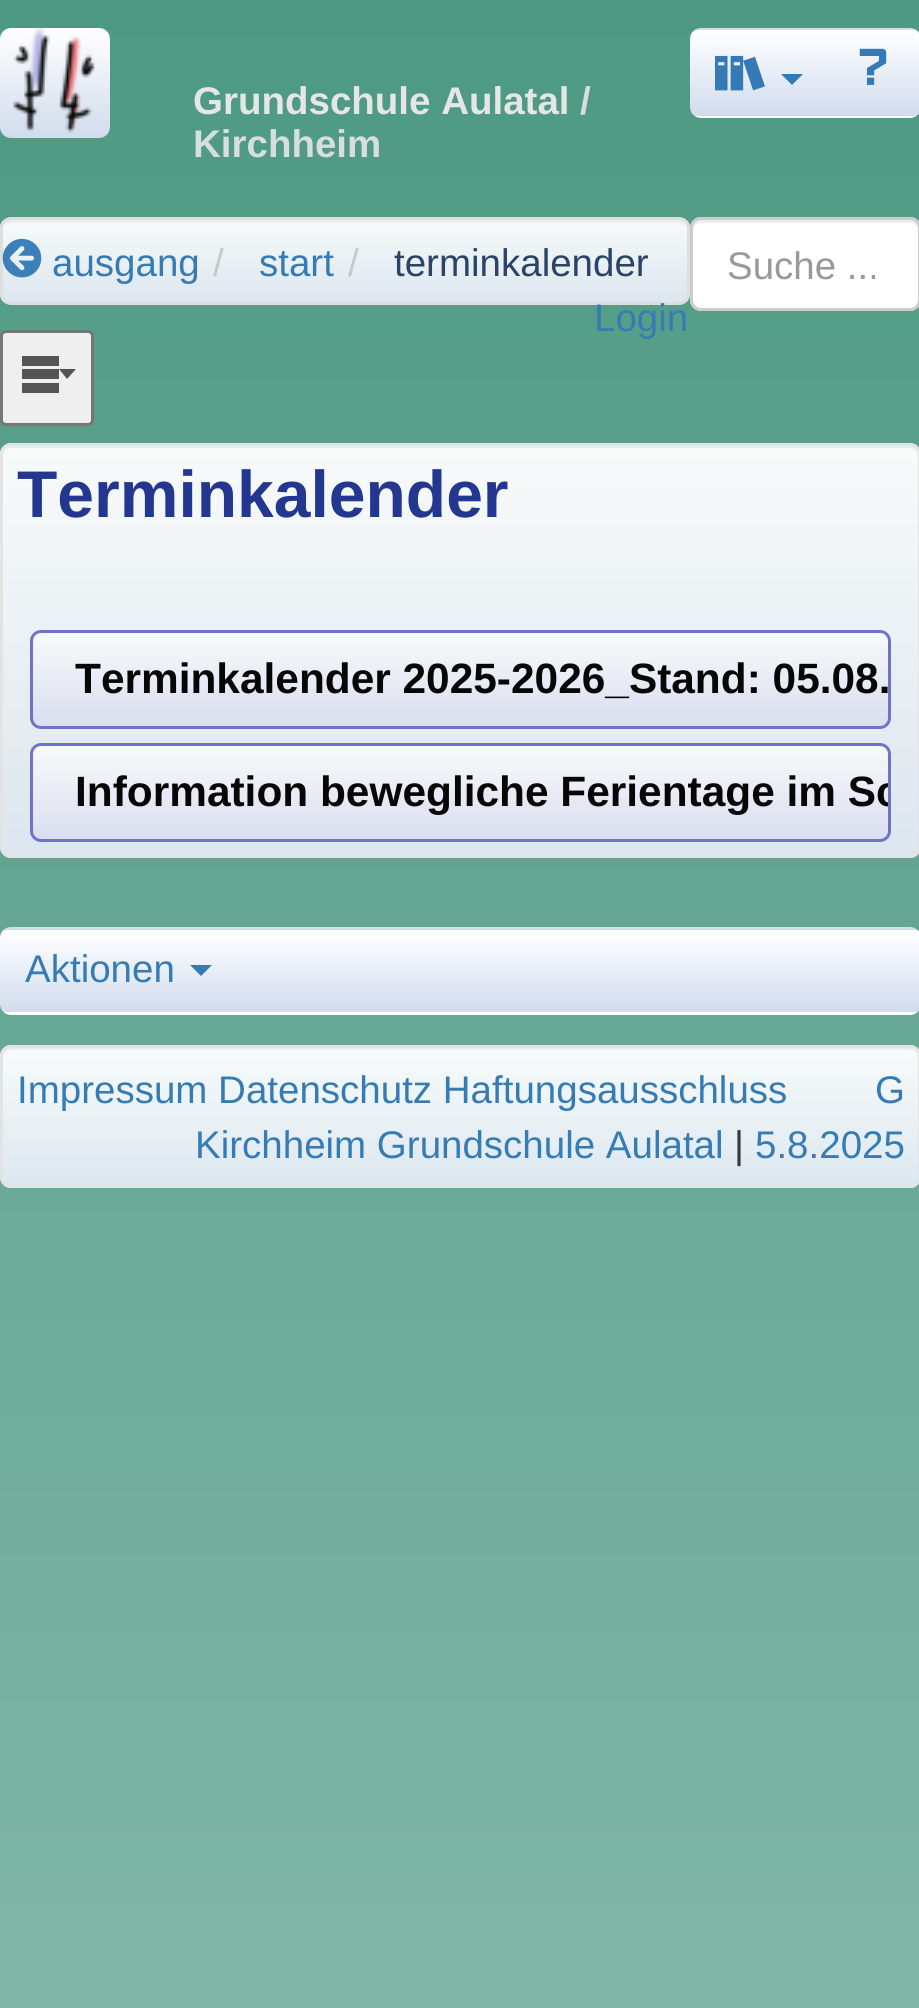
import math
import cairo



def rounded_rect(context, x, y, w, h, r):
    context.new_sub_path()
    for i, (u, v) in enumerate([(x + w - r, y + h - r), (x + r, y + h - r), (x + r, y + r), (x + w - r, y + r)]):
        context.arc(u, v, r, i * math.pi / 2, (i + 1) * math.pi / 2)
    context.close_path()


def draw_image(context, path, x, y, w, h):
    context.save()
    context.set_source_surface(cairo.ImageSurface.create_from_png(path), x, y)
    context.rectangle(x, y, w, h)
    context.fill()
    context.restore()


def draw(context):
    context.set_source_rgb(1, 1, 1)
    context.paint()
    gradient = cairo.LinearGradient(0, 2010, 0, 0)
    gradient.add_color_stop_rgba(0, 128 / 255, 182 / 255, 166 / 255, 1)
    gradient.add_color_stop_rgba(1, 77 / 255, 153 / 255, 130 / 255, 1)
    context.set_source(gradient)
    context.rectangle(0, 0, 919, 2008)
    context.fill()
    gradient = cairo.LinearGradient(0, 138, 0, 28)
    gradient.add_color_stop_rgba(0, 209 / 255, 220 / 255, 237 / 255, 1)
    gradient.add_color_stop_rgba(1, 1, 1, 1, 1)
    context.set_source(gradient)
    rounded_rect(context, 0, 28, 110, 110, 11)
    context.fill()
    draw_image(context, "images/1.png", 13, 28, 82, 105)
    context.save()
    rounded_rect(context, 690, 28, 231, 90, 11)
    context.clip()
    gradient = cairo.LinearGradient(693, 30, 693, -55)
    gradient.add_color_stop_rgba(0, 209 / 255, 220 / 255, 237 / 255, 1)
    gradient.add_color_stop_rgba(1, 1, 1, 1, 1)
    context.set_source(gradient)
    context.rectangle(690, 28, 229, 2)
    context.fill()
    gradient = cairo.LinearGradient(693, 116, 693, 30)
    gradient.add_color_stop_rgba(0, 209 / 255, 220 / 255, 237 / 255, 1)
    gradient.add_color_stop_rgba(1, 1, 1, 1, 1)
    context.set_source(gradient)
    context.rectangle(690, 30, 229, 86)
    context.fill()
    gradient = cairo.LinearGradient(693, 201, 693, 116)
    gradient.add_color_stop_rgba(0, 209 / 255, 220 / 255, 237 / 255, 1)
    gradient.add_color_stop_rgba(1, 1, 1, 1, 1)
    context.set_source(gradient)
    context.rectangle(690, 116, 229, 2)
    context.fill()
    context.restore()
    draw_image(context, "images/2.png", 715, 55, 50, 36)
    context.set_source_rgb(51 / 255, 122 / 255, 183 / 255)
    context.new_path()
    context.move_to(781, 74)
    context.line_to(803, 74)
    context.line_to(792, 85)
    context.close_path()
    context.fill()
    draw_image(context, "images/3.png", 859, 48, 28, 37)
    context.save()
    rounded_rect(context, 0, 217, 690, 88, 11)
    context.clip()
    gradient = cairo.LinearGradient(2.8, 303, 2.8, 220)
    gradient.add_color_stop_rgba(0, 220 / 255, 230 / 255, 239 / 255, 1)
    gradient.add_color_stop_rgba(1, 246 / 255, 250 / 255, 249 / 255, 1)
    context.set_source(gradient)
    context.rectangle(0, 220, 690, 83)
    context.fill()
    context.restore()
    context.set_source_rgb(234 / 255, 238 / 255, 237 / 255)
    context.new_path()
    context.move_to(11, 223)
    context.line_to(679, 223)
    context.curve_to(684, 223, 688, 226, 688, 231)
    context.curve_to(688, 226, 686, 220, 680, 220)
    context.line_to(11, 220)
    context.curve_to(5, 220, 3, 226, 3, 231)
    context.curve_to(3, 226, 6, 223, 11, 223)
    context.close_path()
    context.fill()
    rounded_rect(context, 1.5, 218.5, 687, 85, 9.5)
    context.set_source_rgb(220 / 255, 223 / 255, 222 / 255)
    context.set_line_width(3)
    context.stroke()
    draw_image(context, "images/4.png", 2, 238, 40, 40)
    context.set_source_rgb(1, 1, 1)
    rounded_rect(context, 690, 217, 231, 94, 11)
    context.fill()
    context.set_source_rgb(236 / 255, 236 / 255, 236 / 255)
    context.new_path()
    context.move_to(701, 223)
    context.line_to(910, 223)
    context.curve_to(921, 223, 918, 236, 918, 243)
    context.line_to(918, 304)
    context.curve_to(919, 303, 919, 302, 919, 300)
    context.line_to(919, 228)
    context.curve_to(919, 224, 915, 220, 911, 220)
    context.line_to(701, 220)
    context.curve_to(697, 220, 693, 224, 693, 228)
    context.line_to(693, 231)
    context.curve_to(693, 226, 697, 223, 701, 223)
    context.close_path()
    context.fill()
    rounded_rect(context, 691.5, 218.5, 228, 91, 9.5)
    context.set_source_rgb(204 / 255, 204 / 255, 204 / 255)
    context.stroke()
    context.set_source_rgb(239 / 255, 239 / 255, 239 / 255)
    rounded_rect(context, 1.5, 331.5, 91, 93, 4.5)
    context.fill_preserve()
    context.set_source_rgb(118 / 255, 118 / 255, 118 / 255)
    context.stroke()
    context.set_source_rgb(85 / 255, 85 / 255, 85 / 255)
    context.new_path()
    context.move_to(22, 356)
    context.line_to(59, 356)
    context.line_to(59, 366)
    context.line_to(22, 366)
    context.close_path()
    context.move_to(22, 369)
    context.line_to(59, 369)
    context.line_to(59, 379)
    context.line_to(22, 379)
    context.close_path()
    context.move_to(22, 383)
    context.line_to(59, 383)
    context.line_to(59, 393)
    context.line_to(22, 393)
    context.close_path()
    context.move_to(76, 369)
    context.line_to(67, 379)
    context.line_to(59, 369)
    context.close_path()
    context.fill()
    context.save()
    rounded_rect(context, 0, 443, 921, 415, 11)
    context.clip()
    gradient = cairo.LinearGradient(2.8, 446, 2.8, 36)
    gradient.add_color_stop_rgba(0, 220 / 255, 230 / 255, 239 / 255, 1)
    gradient.add_color_stop_rgba(1, 247 / 255, 250 / 255, 249 / 255, 1)
    context.set_source(gradient)
    context.rectangle(0, 443, 919, 3)
    context.fill()
    gradient = cairo.LinearGradient(2.8, 855, 2.8, 446)
    gradient.add_color_stop_rgba(0, 227 / 255, 234 / 255, 244 / 255, 0.95)
    gradient.add_color_stop_rgba(1, 1, 1, 1, 0.95)
    context.set_source(gradient)
    context.rectangle(0, 446, 919, 409)
    context.fill()
    gradient = cairo.LinearGradient(2.8, 1265, 2.8, 855)
    gradient.add_color_stop_rgba(0, 221 / 255, 231 / 255, 239 / 255, 1)
    gradient.add_color_stop_rgba(1, 247 / 255, 251 / 255, 250 / 255, 1)
    context.set_source(gradient)
    context.rectangle(0, 855, 919, 3)
    context.fill()
    context.restore()
    context.set_source_rgba(0, 0, 0, 0.05)
    context.new_path()
    context.move_to(11, 448)
    context.line_to(910, 448)
    context.curve_to(914, 448, 918, 452, 918, 456)
    context.line_to(918, 851)
    context.curve_to(919, 850, 919, 848, 919, 847)
    context.line_to(919, 454)
    context.curve_to(919, 450, 915, 446, 911, 446)
    context.line_to(11, 446)
    context.curve_to(7, 446, 3, 450, 3, 454)
    context.line_to(3, 456)
    context.curve_to(3, 452, 6, 448, 11, 448)
    context.close_path()
    context.fill()
    rounded_rect(context, 1.5, 444.5, 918, 412, 9.5)
    context.set_source_rgba(227 / 255, 227 / 255, 227 / 255, 0.95)
    context.stroke()
    context.save()
    rounded_rect(context, 30, 630, 861, 99, 11)
    context.clip()
    gradient = cairo.LinearGradient(33, 726, 33, 633)
    gradient.add_color_stop_rgba(0, 218 / 255, 222 / 255, 240 / 255, 1)
    gradient.add_color_stop_rgba(1, 247 / 255, 250 / 255, 249 / 255, 1)
    context.set_source(gradient)
    context.rectangle(30, 633, 861, 93)
    context.fill()
    context.restore()
    rounded_rect(context, 31.5, 631.5, 858, 96, 9.5)
    context.set_source_rgb(111 / 255, 114 / 255, 203 / 255)
    context.stroke()
    context.save()
    rounded_rect(context, 30, 743, 861, 99, 11)
    context.clip()
    gradient = cairo.LinearGradient(33, 839, 33, 745)
    gradient.add_color_stop_rgba(0, 219 / 255, 222 / 255, 240 / 255, 1)
    gradient.add_color_stop_rgba(1, 247 / 255, 250 / 255, 249 / 255, 1)
    context.set_source(gradient)
    context.rectangle(30, 745, 861, 94)
    context.fill()
    context.restore()
    rounded_rect(context, 31.5, 744.5, 858, 96, 9.5)
    context.stroke()
    context.save()
    rounded_rect(context, 0, 927, 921, 88, 11)
    context.clip()
    gradient = cairo.LinearGradient(2.8, 930, 2.8, 847)
    gradient.add_color_stop_rgba(0, 209 / 255, 220 / 255, 237 / 255, 1)
    gradient.add_color_stop_rgba(1, 1, 1, 1, 1)
    context.set_source(gradient)
    context.rectangle(0, 927, 919, 3)
    context.fill()
    gradient = cairo.LinearGradient(2.8, 1012, 2.8, 930)
    gradient.add_color_stop_rgba(0, 209 / 255, 220 / 255, 237 / 255, 1)
    gradient.add_color_stop_rgba(1, 1, 1, 1, 1)
    context.set_source(gradient)
    context.rectangle(0, 930, 919, 82)
    context.fill()
    gradient = cairo.LinearGradient(2.8, 1095, 2.8, 1012)
    gradient.add_color_stop_rgba(0, 209 / 255, 220 / 255, 237 / 255, 1)
    gradient.add_color_stop_rgba(1, 1, 1, 1, 1)
    context.set_source(gradient)
    context.rectangle(0, 1012, 919, 3)
    context.fill()
    context.restore()
    context.set_source_rgb(51 / 255, 122 / 255, 183 / 255)
    context.new_path()
    context.move_to(190, 965)
    context.line_to(212, 965)
    context.line_to(201, 976)
    context.close_path()
    context.fill()
    context.save()
    rounded_rect(context, 0, 1045, 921, 143, 11)
    context.clip()
    gradient = cairo.LinearGradient(2.8, 1048, 2.8, 910)
    gradient.add_color_stop_rgba(0, 221 / 255, 231 / 255, 239 / 255, 1)
    gradient.add_color_stop_rgba(1, 247 / 255, 251 / 255, 250 / 255, 1)
    context.set_source(gradient)
    context.rectangle(0, 1045, 919, 3)
    context.fill()
    gradient = cairo.LinearGradient(2.8, 1185, 2.8, 1048)
    gradient.add_color_stop_rgba(0, 227 / 255, 234 / 255, 244 / 255, 0.95)
    gradient.add_color_stop_rgba(1, 1, 1, 1, 0.95)
    context.set_source(gradient)
    context.rectangle(0, 1048, 919, 137)
    context.fill()
    gradient = cairo.LinearGradient(2.8, 1323, 2.8, 1185)
    gradient.add_color_stop_rgba(0, 221 / 255, 231 / 255, 239 / 255, 1)
    gradient.add_color_stop_rgba(1, 248 / 255, 251 / 255, 250 / 255, 1)
    context.set_source(gradient)
    context.rectangle(0, 1185, 919, 3)
    context.fill()
    context.restore()
    context.set_source_rgba(0, 0, 0, 0.05)
    context.new_path()
    context.move_to(11, 1050)
    context.line_to(910, 1050)
    context.curve_to(915, 1050, 918, 1054, 918, 1059)
    context.line_to(918, 1181)
    context.curve_to(919, 1180, 919, 1178, 919, 1177)
    context.line_to(919, 1056)
    context.curve_to(919, 1052, 915, 1048, 911, 1048)
    context.line_to(11, 1048)
    context.curve_to(7, 1048, 3, 1052, 3, 1056)
    context.line_to(3, 1059)
    context.curve_to(3, 1054, 6, 1050, 11, 1050)
    context.close_path()
    context.fill()
    rounded_rect(context, 1.5, 1046.5, 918, 140, 9.5)
    context.set_source_rgba(227 / 255, 227 / 255, 227 / 255, 0.95)
    context.stroke()
    context.select_font_face("Liberation Sans", cairo.FontSlant.NORMAL, cairo.FontWeight.BOLD)
    context.set_font_size(38.5)
    context.set_source_rgb(230 / 255, 230 / 255, 230 / 255)
    context.move_to(193, 114)
    context.show_text("Grundschule Aulatal")
    context.set_source_rgb(215 / 255, 222 / 255, 220 / 255)
    context.move_to(580, 114)
    context.show_text("/")
    context.move_to(193, 157)
    context.show_text("Kirchheim")
    context.select_font_face("Liberation Sans")
    context.set_source_rgb(53 / 255, 124 / 255, 181 / 255)
    context.move_to(52, 276)
    context.show_text("ausgang")
    context.set_source_rgb(198 / 255, 202 / 255, 201 / 255)
    context.move_to(213, 276)
    context.show_text("/")
    context.set_source_rgb(53 / 255, 124 / 255, 181 / 255)
    context.move_to(259, 276)
    context.show_text("start")
    context.set_source_rgb(198 / 255, 202 / 255, 201 / 255)
    context.move_to(348, 276)
    context.show_text("/")
    context.set_source_rgb(41 / 255, 68 / 255, 103 / 255)
    context.move_to(394, 276)
    context.show_text("terminkalender")
    context.set_source_rgb(53 / 255, 124 / 255, 181 / 255)
    context.move_to(594, 331)
    context.show_text("Login")
    context.save()
    context.rectangle(726, 242, 149, 44)
    context.clip()
    context.set_source_rgb(153 / 255, 153 / 255, 153 / 255)
    context.move_to(727, 279)
    context.show_text("Suche ...")
    context.restore()
    context.select_font_face("Liberation Sans", cairo.FontSlant.NORMAL, cairo.FontWeight.BOLD)
    context.set_font_size(66)
    context.set_source_rgb(35 / 255, 54 / 255, 144 / 255)
    context.move_to(17, 517)
    context.show_text("Terminkalender")
    context.set_font_size(42.4)
    context.set_source_rgb(5 / 255, 8 / 255, 7 / 255)
    context.move_to(75, 693)
    context.show_text("Terminkalender 2025-2026_Stand: 05.08.")
    context.save()
    rounded_rect(context, 33, 745, 855, 94, 8)
    context.clip()
    context.move_to(75, 806)
    context.show_text("Information bewegliche Ferientage im Sc")
    context.restore()
    context.select_font_face("Liberation Sans")
    context.set_font_size(38.5)
    context.set_source_rgb(53 / 255, 124 / 255, 181 / 255)
    context.move_to(25, 982)
    context.show_text("Aktionen")
    context.move_to(17, 1103)
    context.show_text("Impressum Datenschutz Haftungsausschluss")
    context.move_to(875, 1103)
    context.show_text("G")
    context.move_to(195, 1158)
    context.show_text("Kirchheim Grundschule Aulatal")
    context.set_source_rgb(54 / 255, 57 / 255, 56 / 255)
    context.move_to(734, 1158)
    context.show_text("|")
    context.set_source_rgb(53 / 255, 124 / 255, 181 / 255)
    context.move_to(755, 1158)
    context.show_text("5.8.2025")


surface = cairo.ImageSurface(cairo.Format.RGB24, 919, 2008)
context = cairo.Context(surface)
options = cairo.FontOptions()
options.set_hint_metrics(cairo.HintMetrics.OFF)
options.set_hint_style(cairo.HintStyle.NONE)
context.set_font_options(options)
context.set_miter_limit(4)
draw(context)
surface.write_to_png("out.png")
